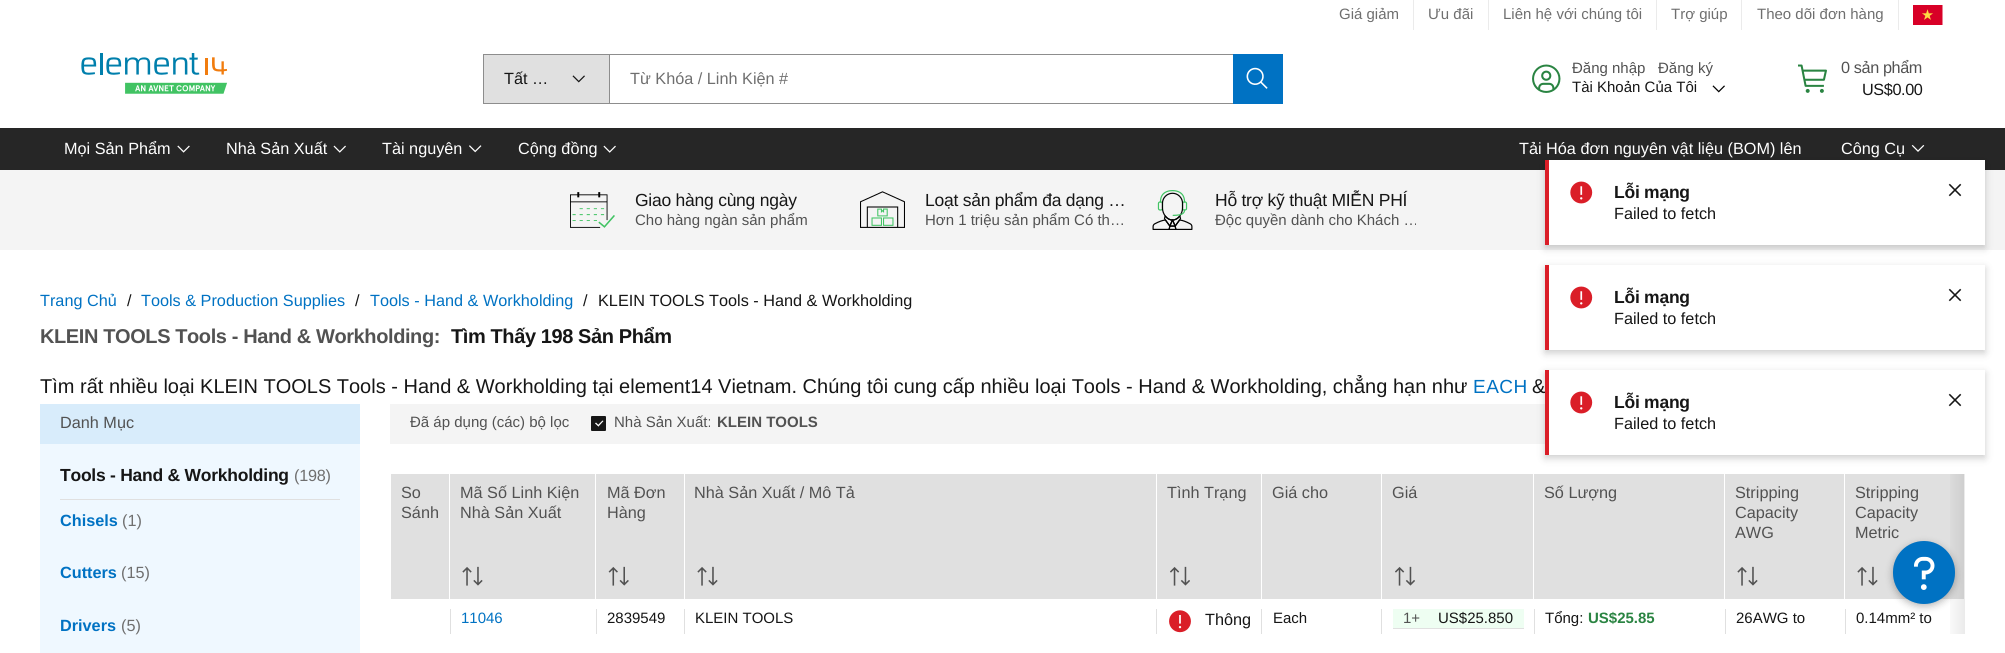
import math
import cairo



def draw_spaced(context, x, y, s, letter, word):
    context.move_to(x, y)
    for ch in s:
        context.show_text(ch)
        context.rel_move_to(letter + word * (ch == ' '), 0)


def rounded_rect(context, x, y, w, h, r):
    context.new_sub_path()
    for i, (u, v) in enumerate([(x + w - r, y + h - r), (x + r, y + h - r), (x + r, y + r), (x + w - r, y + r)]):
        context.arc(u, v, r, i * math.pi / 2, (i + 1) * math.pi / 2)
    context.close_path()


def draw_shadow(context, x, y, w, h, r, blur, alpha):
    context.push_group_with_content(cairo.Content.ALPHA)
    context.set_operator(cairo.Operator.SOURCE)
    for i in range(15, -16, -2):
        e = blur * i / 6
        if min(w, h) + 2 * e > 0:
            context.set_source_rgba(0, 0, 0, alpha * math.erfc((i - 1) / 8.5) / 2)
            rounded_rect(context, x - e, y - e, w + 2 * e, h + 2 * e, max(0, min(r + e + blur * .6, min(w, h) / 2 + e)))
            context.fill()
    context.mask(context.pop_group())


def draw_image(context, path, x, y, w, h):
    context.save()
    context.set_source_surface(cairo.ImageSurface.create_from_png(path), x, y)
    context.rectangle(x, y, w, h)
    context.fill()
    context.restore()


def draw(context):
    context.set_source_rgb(1, 1, 1)
    context.paint()
    context.set_source_rgb(235 / 255, 235 / 255, 235 / 255)
    context.rectangle(1413, 0, 1, 30)
    context.fill()
    context.rectangle(1488, 0, 1, 30)
    context.fill()
    context.rectangle(1656, 0, 1, 30)
    context.fill()
    context.rectangle(1741, 0, 1, 30)
    context.fill()
    context.rectangle(1898, 0, 1, 30)
    context.fill()
    draw_image(context, "images/1.png", 1913, 5, 30, 20)
    draw_image(context, "images/2.png", 81, 53, 147, 41)
    context.set_source_rgb(224 / 255, 224 / 255, 224 / 255)
    context.rectangle(484, 55, 125, 48)
    context.fill()
    context.set_source_rgb(141 / 255, 141 / 255, 141 / 255)
    context.rectangle(483, 54, 750, 1)
    context.fill()
    context.rectangle(483, 103, 750, 1)
    context.fill()
    context.rectangle(483, 54, 1, 50)
    context.fill()
    draw_image(context, "images/3.png", 572, 75, 13, 8)
    context.rectangle(609, 54, 1, 50)
    context.fill()
    context.set_source_rgb(0, 114 / 255, 195 / 255)
    context.rectangle(1233, 54, 50, 50)
    context.fill()
    draw_image(context, "images/4.png", 1246, 67, 22, 22)
    draw_image(context, "images/5.png", 1532, 64, 29, 29)
    draw_image(context, "images/6.png", 1712, 85, 13, 8)
    draw_image(context, "images/7.png", 1798, 64, 29, 29)
    context.set_source_rgb(38 / 255, 38 / 255, 38 / 255)
    context.rectangle(0, 128, 2005, 42)
    context.fill()
    draw_image(context, "images/8.png", 177, 145, 13, 8)
    draw_image(context, "images/9.png", 333, 145, 13, 8)
    draw_image(context, "images/10.png", 469, 145, 13, 8)
    draw_image(context, "images/11.png", 603, 145, 13, 8)
    draw_image(context, "images/12.png", 1911, 145, 14, 7)
    context.set_source_rgb(244 / 255, 244 / 255, 244 / 255)
    context.rectangle(0, 170, 2005, 80)
    context.fill()
    context.set_source_rgb(0, 0, 0)
    draw_shadow(context, 1545, 163, 440, 85, 0, 4, 0.2)
    context.set_source_rgb(1, 1, 1)
    context.rectangle(1549, 160, 436, 85)
    context.fill()
    context.set_source_rgb(218 / 255, 30 / 255, 40 / 255)
    context.rectangle(1545, 160, 4, 85)
    context.fill()
    draw_image(context, "images/13.png", 1570, 181, 23, 23)
    draw_image(context, "images/14.png", 1948, 183, 14, 14)
    context.save()
    context.set_fill_rule(cairo.FillRule.EVEN_ODD)
    context.new_path()
    context.move_to(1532, 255)
    context.line_to(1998, 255)
    context.line_to(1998, 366)
    context.line_to(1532, 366)
    context.close_path()
    context.move_to(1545, 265)
    context.line_to(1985, 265)
    context.line_to(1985, 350)
    context.line_to(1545, 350)
    context.close_path()
    context.clip()
    context.set_source_rgb(0, 0, 0)
    draw_shadow(context, 1545, 268, 440, 85, 0, 4, 0.2)
    context.restore()
    context.rectangle(1545, 265, 4, 85)
    context.fill()
    draw_image(context, "images/13.png", 1570, 286, 23, 23)
    draw_image(context, "images/14.png", 1948, 288, 14, 14)
    context.set_source_rgb(244 / 255, 244 / 255, 244 / 255)
    context.rectangle(390, 404, 1155, 40)
    context.fill()
    context.set_source_rgb(0, 0, 0)
    draw_shadow(context, 1545, 373, 440, 85, 0, 4, 0.2)
    context.set_source_rgb(1, 1, 1)
    context.rectangle(1549, 370, 436, 85)
    context.fill()
    draw_image(context, "images/13.png", 1570, 391, 23, 23)
    draw_image(context, "images/14.png", 1948, 393, 14, 14)
    draw_image(context, "images/15.png", 570, 192, 45, 36)
    draw_image(context, "images/16.png", 860, 191, 45, 37)
    draw_image(context, "images/17.png", 1152, 190, 41, 40)
    context.set_source_rgb(216 / 255, 236 / 255, 251 / 255)
    context.rectangle(40, 404, 320, 40)
    context.fill()
    context.set_source_rgb(239 / 255, 248 / 255, 1)
    context.rectangle(40, 444, 320, 209)
    context.fill()
    context.set_source_rgb(224 / 255, 224 / 255, 224 / 255)
    context.rectangle(60, 499, 280, 1)
    context.fill()
    context.set_source_rgb(22 / 255, 22 / 255, 22 / 255)
    rounded_rect(context, 591.5, 416.5, 14, 14, 0.5)
    context.fill_preserve()
    context.set_line_width(1)
    context.stroke()
    context.set_source_rgb(1, 1, 1)
    context.new_path()
    context.move_to(597.5, 425.5)
    context.line_to(602.5, 420.5)
    context.line_to(603.5, 421)
    context.line_to(598.5, 426.5)
    context.close_path()
    context.fill()
    context.new_path()
    context.move_to(595, 423.5)
    context.line_to(596, 422.5)
    context.line_to(599, 425.5)
    context.line_to(598.5, 426.5)
    context.close_path()
    context.fill()
    context.set_source_rgb(224 / 255, 224 / 255, 224 / 255)
    context.rectangle(391, 474, 58, 125)
    context.fill()
    context.rectangle(450, 474, 145, 125)
    context.fill()
    draw_image(context, "images/18.png", 462, 566, 21, 20)
    context.rectangle(596, 474, 88, 125)
    context.fill()
    draw_image(context, "images/19.png", 608, 566, 21, 20)
    context.rectangle(685, 474, 471, 125)
    context.fill()
    draw_image(context, "images/18.png", 697, 566, 21, 20)
    context.rectangle(1157, 474, 104, 125)
    context.fill()
    draw_image(context, "images/20.png", 1170, 566, 20, 20)
    context.rectangle(1262, 474, 119, 125)
    context.fill()
    context.rectangle(1382, 474, 151, 125)
    context.fill()
    draw_image(context, "images/20.png", 1395, 566, 20, 20)
    context.rectangle(1534, 474, 190, 125)
    context.fill()
    context.rectangle(1725, 474, 119, 125)
    context.fill()
    draw_image(context, "images/18.png", 1737, 566, 21, 20)
    context.rectangle(1845, 474, 119, 125)
    context.fill()
    draw_image(context, "images/18.png", 1857, 566, 21, 20)
    context.rectangle(450, 609, 1, 25)
    context.fill()
    context.rectangle(596, 609, 1, 25)
    context.fill()
    context.rectangle(684, 609, 1, 25)
    context.fill()
    context.rectangle(1156, 609, 1, 25)
    context.fill()
    draw_image(context, "images/21.png", 1169, 610, 22, 23)
    context.rectangle(1261, 609, 1, 25)
    context.fill()
    context.rectangle(1381, 609, 1, 25)
    context.fill()
    context.set_source_rgb(238 / 255, 254 / 255, 242 / 255)
    context.rectangle(1393, 609, 131, 19)
    context.fill()
    context.set_source_rgb(224 / 255, 224 / 255, 224 / 255)
    context.rectangle(1393, 628, 131, 1)
    context.fill()
    context.rectangle(1534, 609, 1, 25)
    context.fill()
    context.rectangle(1725, 609, 1, 25)
    context.fill()
    context.rectangle(1845, 609, 1, 25)
    context.fill()
    gradient = cairo.LinearGradient(1965, 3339, 1945, 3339)
    gradient.add_color_stop_rgba(0, 0, 0, 0, 0.08)
    gradient.add_color_stop_rgba(1, 0, 0, 0, 0)
    context.set_source(gradient)
    context.rectangle(1950, 474, 15, 160)
    context.fill()
    context.set_source_rgb(0, 0, 0)
    draw_shadow(context, 1893, 544, 62, 62, 31, 4, 0.3)
    context.set_source_rgb(0, 114 / 255, 195 / 255)
    rounded_rect(context, 1893, 541, 62, 63, 31)
    context.fill()
    draw_image(context, "images/22.png", 1914, 556, 21, 34)
    context.select_font_face("Liberation Sans")
    context.set_font_size(15)
    context.set_source_rgb(111 / 255, 111 / 255, 111 / 255)
    context.move_to(1339, 19)
    context.show_text("Giá giảm")
    context.move_to(1428, 19)
    context.show_text("Ưu đãi")
    context.move_to(1503, 19)
    context.show_text("Liên hệ với chúng tôi")
    context.move_to(1671, 19)
    context.show_text("Trợ giúp")
    context.move_to(1757, 19)
    context.show_text("Theo dõi đơn hàng")
    context.set_font_size(16.25)
    context.set_source_rgb(22 / 255, 22 / 255, 22 / 255)
    context.move_to(504, 84)
    context.show_text("Tất …")
    context.set_source_rgb(111 / 255, 111 / 255, 111 / 255)
    context.move_to(630, 84)
    context.show_text("Từ Khóa / Linh Kiện #")
    context.set_font_size(15)
    context.set_source_rgb(82 / 255, 82 / 255, 82 / 255)
    context.move_to(1572, 73)
    context.show_text("Đăng nhập")
    context.move_to(1658, 73)
    context.show_text("Đăng ký")
    context.set_source_rgb(22 / 255, 22 / 255, 22 / 255)
    context.move_to(1572, 92)
    context.show_text("Tài Khoản Của Tôi")
    context.set_font_size(16.25)
    context.set_source_rgb(82 / 255, 82 / 255, 82 / 255)
    draw_spaced(context, 1841, 73, "0 sản phẩm", -0.4, 0)
    context.set_source_rgb(22 / 255, 22 / 255, 22 / 255)
    draw_spaced(context, 1862, 95, "US$0.00", -0.4, 0)
    context.set_source_rgb(1, 1, 1)
    context.move_to(64, 154)
    context.show_text("Mọi Sản Phẩm")
    context.move_to(226, 154)
    context.show_text("Nhà Sản Xuất")
    context.move_to(382, 154)
    context.show_text("Tài nguyên")
    context.move_to(518, 154)
    context.show_text("Cộng đồng")
    context.move_to(1519, 154)
    context.show_text("Tải Hóa đơn nguyên vật liệu (BOM) lên")
    context.move_to(1841, 154)
    context.show_text("Công Cụ")
    context.select_font_face("Liberation Sans", cairo.FontSlant.NORMAL, cairo.FontWeight.BOLD)
    context.set_font_size(17.5)
    context.set_source_rgb(22 / 255, 22 / 255, 22 / 255)
    draw_spaced(context, 1614, 198, "Lỗi mạng", -0.25, 0)
    context.select_font_face("Liberation Sans")
    context.set_font_size(16.25)
    context.move_to(1614, 219)
    context.show_text("Failed to fetch")
    context.select_font_face("Liberation Sans", cairo.FontSlant.NORMAL, cairo.FontWeight.BOLD)
    context.set_font_size(17.5)
    draw_spaced(context, 1614, 303, "Lỗi mạng", -0.25, 0)
    context.select_font_face("Liberation Sans")
    context.set_font_size(16.25)
    context.move_to(1614, 324)
    context.show_text("Failed to fetch")
    context.select_font_face("Liberation Sans", cairo.FontSlant.NORMAL, cairo.FontWeight.BOLD)
    context.set_font_size(17.5)
    draw_spaced(context, 1614, 408, "Lỗi mạng", -0.25, 0)
    context.select_font_face("Liberation Sans")
    context.set_font_size(16.25)
    context.move_to(1614, 429)
    context.show_text("Failed to fetch")
    context.set_font_size(17.5)
    draw_spaced(context, 635, 206, "Giao hàng cùng ngày", -0.25, 0)
    context.set_font_size(15)
    context.set_source_rgb(82 / 255, 82 / 255, 82 / 255)
    context.move_to(635, 225)
    context.show_text("Cho hàng ngàn sản phẩm")
    context.set_font_size(17.5)
    context.set_source_rgb(22 / 255, 22 / 255, 22 / 255)
    draw_spaced(context, 925, 206, "Loạt sản phẩm đa dạng …", -0.25, 0)
    context.set_font_size(15)
    context.set_source_rgb(82 / 255, 82 / 255, 82 / 255)
    context.move_to(925, 225)
    context.show_text("Hơn 1 triệu sản phẩm Có th…")
    context.set_font_size(17.5)
    context.set_source_rgb(22 / 255, 22 / 255, 22 / 255)
    draw_spaced(context, 1215, 206, "Hỗ trợ kỹ thuật MIỄN PHÍ", -0.25, 0)
    context.set_font_size(15)
    context.set_source_rgb(82 / 255, 82 / 255, 82 / 255)
    context.move_to(1215, 225)
    context.show_text("Độc quyền dành cho Khách …")
    context.set_font_size(16.25)
    context.set_source_rgb(0, 114 / 255, 195 / 255)
    context.move_to(40, 306)
    context.show_text("Trang Chủ")
    context.set_source_rgb(22 / 255, 22 / 255, 22 / 255)
    context.move_to(127, 306)
    context.show_text("/")
    context.set_source_rgb(0, 114 / 255, 195 / 255)
    context.move_to(141, 306)
    context.show_text("Tools & Production Supplies")
    context.set_source_rgb(22 / 255, 22 / 255, 22 / 255)
    context.move_to(355, 306)
    context.show_text("/")
    context.set_source_rgb(0, 114 / 255, 195 / 255)
    context.move_to(370, 306)
    context.show_text("Tools - Hand & Workholding")
    context.set_source_rgb(22 / 255, 22 / 255, 22 / 255)
    context.move_to(583, 306)
    context.show_text("/")
    context.move_to(598, 306)
    context.show_text("KLEIN TOOLS Tools - Hand & Workholding")
    context.select_font_face("Liberation Sans", cairo.FontSlant.NORMAL, cairo.FontWeight.BOLD)
    context.set_font_size(20)
    context.set_source_rgb(82 / 255, 82 / 255, 82 / 255)
    draw_spaced(context, 40, 343, "KLEIN TOOLS Tools - Hand & Workholding:", -0.4, 0)
    context.set_source_rgb(22 / 255, 22 / 255, 22 / 255)
    draw_spaced(context, 451, 343, "Tìm Thấy 198 Sản Phẩm", -0.4, 0)
    context.select_font_face("Liberation Sans")
    context.move_to(40, 393)
    context.show_text("Tìm rất nhiều loại KLEIN TOOLS Tools - Hand & Workholding tại element14 Vietnam. Chúng tôi cung cấp nhiều loại Tools - Hand & Workholding, chẳng hạn như")
    context.set_font_size(19)
    context.set_source_rgb(0, 114 / 255, 195 / 255)
    draw_spaced(context, 1473, 393, "EACH", 0.5, 0)
    context.set_font_size(20)
    context.set_source_rgb(22 / 255, 22 / 255, 22 / 255)
    context.move_to(1532, 393)
    context.show_text("&")
    context.set_source_rgb(218 / 255, 30 / 255, 40 / 255)
    context.rectangle(1545, 370, 4, 85)
    context.fill()
    context.set_font_size(16.25)
    context.set_source_rgb(82 / 255, 82 / 255, 82 / 255)
    context.move_to(60, 428)
    context.show_text("Danh Mục")
    context.select_font_face("Liberation Sans", cairo.FontSlant.NORMAL, cairo.FontWeight.BOLD)
    context.set_font_size(17.5)
    context.set_source_rgb(22 / 255, 22 / 255, 22 / 255)
    draw_spaced(context, 60, 481, "Tools - Hand & Workholding", -0.25, 0)
    context.select_font_face("Liberation Sans")
    context.set_font_size(16.25)
    context.set_source_rgb(111 / 255, 111 / 255, 111 / 255)
    draw_spaced(context, 294, 481, "(198)", -0.25, 0)
    context.select_font_face("Liberation Sans", cairo.FontSlant.NORMAL, cairo.FontWeight.BOLD)
    context.set_source_rgb(0, 114 / 255, 195 / 255)
    context.move_to(60, 526)
    context.show_text("Chisels")
    context.select_font_face("Liberation Sans")
    context.set_source_rgb(111 / 255, 111 / 255, 111 / 255)
    context.move_to(122, 526)
    context.show_text("(1)")
    context.select_font_face("Liberation Sans", cairo.FontSlant.NORMAL, cairo.FontWeight.BOLD)
    context.set_source_rgb(0, 114 / 255, 195 / 255)
    context.move_to(60, 578)
    context.show_text("Cutters")
    context.select_font_face("Liberation Sans")
    context.set_source_rgb(111 / 255, 111 / 255, 111 / 255)
    context.move_to(121, 578)
    context.show_text("(15)")
    context.select_font_face("Liberation Sans", cairo.FontSlant.NORMAL, cairo.FontWeight.BOLD)
    context.set_source_rgb(0, 114 / 255, 195 / 255)
    context.move_to(60, 631)
    context.show_text("Drivers")
    context.select_font_face("Liberation Sans")
    context.set_source_rgb(111 / 255, 111 / 255, 111 / 255)
    context.move_to(121, 631)
    context.show_text("(5)")
    context.set_font_size(15)
    context.set_source_rgb(82 / 255, 82 / 255, 82 / 255)
    context.move_to(410, 427)
    context.show_text("Đã áp dụng (các) bộ lọc")
    context.move_to(614, 427)
    context.show_text("Nhà Sản Xuất:")
    context.select_font_face("Liberation Sans", cairo.FontSlant.NORMAL, cairo.FontWeight.BOLD)
    context.move_to(717, 427)
    context.show_text("KLEIN TOOLS")
    context.select_font_face("Liberation Sans")
    context.set_font_size(16.25)
    context.move_to(401, 498)
    context.show_text("So")
    context.move_to(401, 518)
    context.show_text("Sánh")
    context.move_to(460, 498)
    context.show_text("Mã Số Linh Kiện")
    context.move_to(460, 518)
    context.show_text("Nhà Sản Xuất")
    context.move_to(607, 498)
    context.show_text("Mã Đơn")
    context.move_to(607, 518)
    context.show_text("Hàng")
    context.move_to(694, 498)
    context.show_text("Nhà Sản Xuất / Mô Tả")
    context.move_to(1167, 498)
    context.show_text("Tình Trạng")
    context.move_to(1272, 498)
    context.show_text("Giá cho")
    context.move_to(1392, 498)
    context.show_text("Giá")
    context.move_to(1544, 498)
    context.show_text("Số Lượng")
    context.move_to(1735, 498)
    context.show_text("Stripping")
    context.move_to(1735, 518)
    context.show_text("Capacity")
    context.move_to(1735, 538)
    context.show_text("AWG")
    context.move_to(1855, 498)
    context.show_text("Stripping")
    context.move_to(1855, 518)
    context.show_text("Capacity")
    context.move_to(1855, 538)
    context.show_text("Metric")
    context.set_font_size(15)
    context.set_source_rgb(0, 114 / 255, 195 / 255)
    context.move_to(461, 623)
    context.show_text("11046")
    context.set_source_rgb(22 / 255, 22 / 255, 22 / 255)
    context.move_to(607, 623)
    context.show_text("2839549")
    context.move_to(695, 623)
    context.show_text("KLEIN TOOLS")
    context.set_font_size(16.25)
    context.move_to(1205, 625)
    context.show_text("Thông")
    context.set_font_size(15)
    context.move_to(1273, 623)
    context.show_text("Each")
    context.set_source_rgb(82 / 255, 82 / 255, 82 / 255)
    context.move_to(1403, 623)
    context.show_text("1+")
    context.set_source_rgb(22 / 255, 22 / 255, 22 / 255)
    context.move_to(1438, 623)
    context.show_text("US$25.850")
    context.move_to(1545, 623)
    context.show_text("Tổng:")
    context.select_font_face("Liberation Sans", cairo.FontSlant.NORMAL, cairo.FontWeight.BOLD)
    context.set_source_rgb(42 / 255, 132 / 255, 66 / 255)
    context.move_to(1588, 623)
    context.show_text("US$25.85")
    context.select_font_face("Liberation Sans")
    context.set_source_rgb(22 / 255, 22 / 255, 22 / 255)
    context.move_to(1736, 623)
    context.show_text("26AWG to")
    context.move_to(1856, 623)
    context.show_text("0.14mm² to")


surface = cairo.ImageSurface(cairo.Format.RGB24, 2005, 653)
context = cairo.Context(surface)
options = cairo.FontOptions()
options.set_hint_metrics(cairo.HintMetrics.OFF)
options.set_hint_style(cairo.HintStyle.NONE)
context.set_font_options(options)
context.set_miter_limit(4)
draw(context)
surface.write_to_png("out.png")
